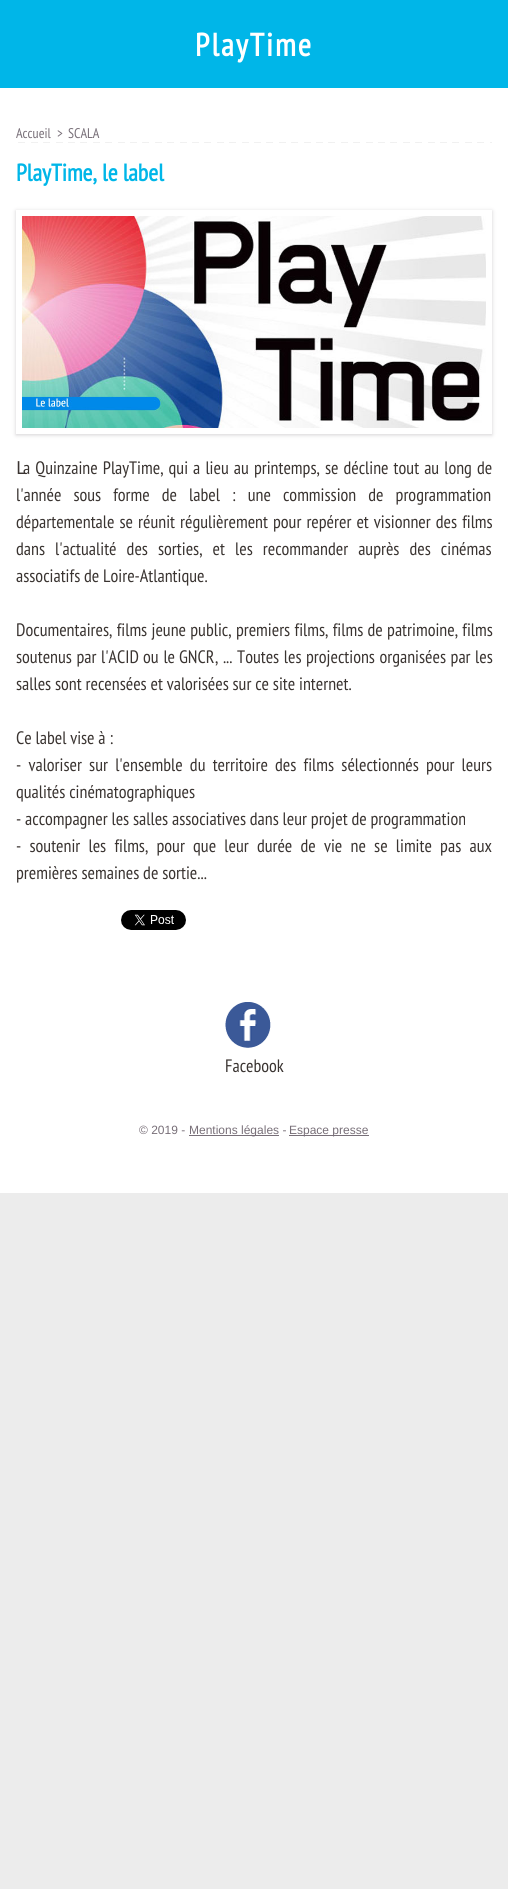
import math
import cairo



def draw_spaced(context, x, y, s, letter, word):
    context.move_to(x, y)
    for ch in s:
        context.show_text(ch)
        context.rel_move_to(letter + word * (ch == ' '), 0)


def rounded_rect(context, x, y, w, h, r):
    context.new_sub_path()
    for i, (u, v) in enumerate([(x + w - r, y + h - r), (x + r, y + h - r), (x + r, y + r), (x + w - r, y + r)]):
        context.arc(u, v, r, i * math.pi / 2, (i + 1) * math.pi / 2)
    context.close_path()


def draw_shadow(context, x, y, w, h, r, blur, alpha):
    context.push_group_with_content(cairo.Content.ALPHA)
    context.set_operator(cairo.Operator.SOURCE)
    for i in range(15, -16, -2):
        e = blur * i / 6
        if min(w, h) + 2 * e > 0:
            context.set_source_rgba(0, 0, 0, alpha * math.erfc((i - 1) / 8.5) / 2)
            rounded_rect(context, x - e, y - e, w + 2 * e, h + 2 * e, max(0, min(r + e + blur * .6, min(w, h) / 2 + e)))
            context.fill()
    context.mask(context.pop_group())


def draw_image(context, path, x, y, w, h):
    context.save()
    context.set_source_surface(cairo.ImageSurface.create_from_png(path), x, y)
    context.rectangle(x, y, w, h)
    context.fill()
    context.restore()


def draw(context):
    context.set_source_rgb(236 / 255, 236 / 255, 236 / 255)
    context.paint()
    context.set_source_rgb(1, 1, 1)
    context.rectangle(0, 88, 508, 20)
    context.fill()
    context.set_source_rgb(0, 182 / 255, 232 / 255)
    context.rectangle(0, 0, 508, 88)
    context.fill()
    context.set_source_rgb(1, 1, 1)
    context.rectangle(0, 108, 508, 1085)
    context.fill()
    draw_image(context, "images/1.png", 18, 142, 474, 1)
    context.save()
    context.set_fill_rule(cairo.FillRule.EVEN_ODD)
    context.new_path()
    context.move_to(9, 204)
    context.line_to(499, 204)
    context.line_to(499, 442)
    context.line_to(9, 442)
    context.close_path()
    context.move_to(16, 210)
    context.line_to(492, 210)
    context.line_to(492, 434)
    context.line_to(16, 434)
    context.close_path()
    context.clip()
    context.set_source_rgb(211 / 255, 209 / 255, 211 / 255)
    draw_shadow(context, 16, 211, 476, 224, 0, 2, 1)
    context.restore()
    draw_image(context, "images/2.png", 22, 216, 464, 212)
    draw_image(context, "images/3.png", 121, 910, 65, 20)
    draw_image(context, "images/4.png", 225, 1002, 46, 46)
    context.set_source_rgb(120 / 255, 111 / 255, 120 / 255)
    context.rectangle(189, 1135, 90, 1)
    context.fill()
    context.rectangle(289, 1135, 80, 1)
    context.fill()
    context.select_font_face("PT Sans Narrow", cairo.FontSlant.NORMAL, cairo.FontWeight.BOLD)
    context.set_font_size(32)
    context.set_source_rgb(1, 1, 1)
    draw_spaced(context, 195, 56, "PlayTime", 2, 0)
    context.select_font_face("PT Sans Narrow")
    context.set_font_size(14)
    context.set_source_rgb(120 / 255, 111 / 255, 120 / 255)
    context.move_to(16, 138)
    context.show_text("Accueil")
    context.move_to(57, 138)
    context.show_text(">")
    context.move_to(68, 138)
    context.show_text("SCALA")
    context.select_font_face("PT Sans Narrow", cairo.FontSlant.NORMAL, cairo.FontWeight.BOLD)
    context.set_font_size(24)
    context.set_source_rgb(0, 182 / 255, 232 / 255)
    context.move_to(16, 181)
    context.show_text("PlayTime, le label")
    context.select_font_face("PT Sans Narrow")
    context.set_font_size(18)
    context.set_source_rgb(58 / 255, 52 / 255, 49 / 255)
    draw_spaced(context, 16, 501, "l'année sous forme de label : une commission de programmation", 0, 8.25)
    draw_spaced(context, 16, 528, "départementale se réunit régulièrement pour repérer et visionner des films", 0, 1.25)
    draw_spaced(context, 16, 555, "dans l'actualité des sorties, et les recommander auprès des cinémas", 0, 6.25)
    context.move_to(16, 582)
    context.show_text("associatifs de Loire-Atlantique.")
    draw_spaced(context, 16, 636, "Documentaires, films jeune public, premiers films, films de patrimoine, films", 0, 0.5)
    draw_spaced(context, 16, 663, "soutenus par", 0, 0.75)
    context.move_to(101, 663)
    context.show_text("l'ACID")
    draw_spaced(context, 143, 663, "ou le", 0, 1)
    context.move_to(179, 663)
    context.show_text("GNCR")
    draw_spaced(context, 215, 663, ", ... Toutes les projections organisées par les", 0, 0.75)
    context.move_to(16, 690)
    context.show_text("salles sont recensées et valorisées sur ce site internet.")
    context.move_to(16, 744)
    context.show_text("Ce label vise à :")
    draw_spaced(context, 16, 771, "- valoriser sur l'ensemble du territoire des films sélectionnés pour leurs", 0, 3.4)
    context.move_to(16, 798)
    context.show_text("qualités cinématographiques")
    context.move_to(16, 825)
    context.show_text("- accompagner les salles associatives dans leur projet de programmation")
    draw_spaced(context, 16, 852, "- soutenir les films, pour que leur durée de vie ne se limite pas aux", 0, 4.4)
    context.move_to(16, 879)
    context.show_text("premières semaines de sortie...")
    context.select_font_face("Noto Sans")
    context.move_to(16, 474)
    context.show_text("L")
    context.select_font_face("PT Sans Narrow")
    draw_spaced(context, 23, 474, "a Quinzaine PlayTime, qui a lieu au printemps, se décline tout au long de", 0, 1.25)
    context.move_to(225, 1072)
    context.show_text("Facebook")
    context.select_font_face("Liberation Sans")
    context.set_font_size(12)
    context.set_source_rgb(120 / 255, 111 / 255, 120 / 255)
    context.move_to(139, 1134)
    context.show_text("© 2019 -")
    context.move_to(189, 1134)
    context.show_text("Mentions légales -")
    context.move_to(289, 1134)
    context.show_text("Espace presse")


surface = cairo.ImageSurface(cairo.Format.RGB24, 508, 1889)
context = cairo.Context(surface)
options = cairo.FontOptions()
options.set_hint_metrics(cairo.HintMetrics.OFF)
options.set_hint_style(cairo.HintStyle.NONE)
context.set_font_options(options)
context.set_miter_limit(4)
draw(context)
surface.write_to_png("out.png")
